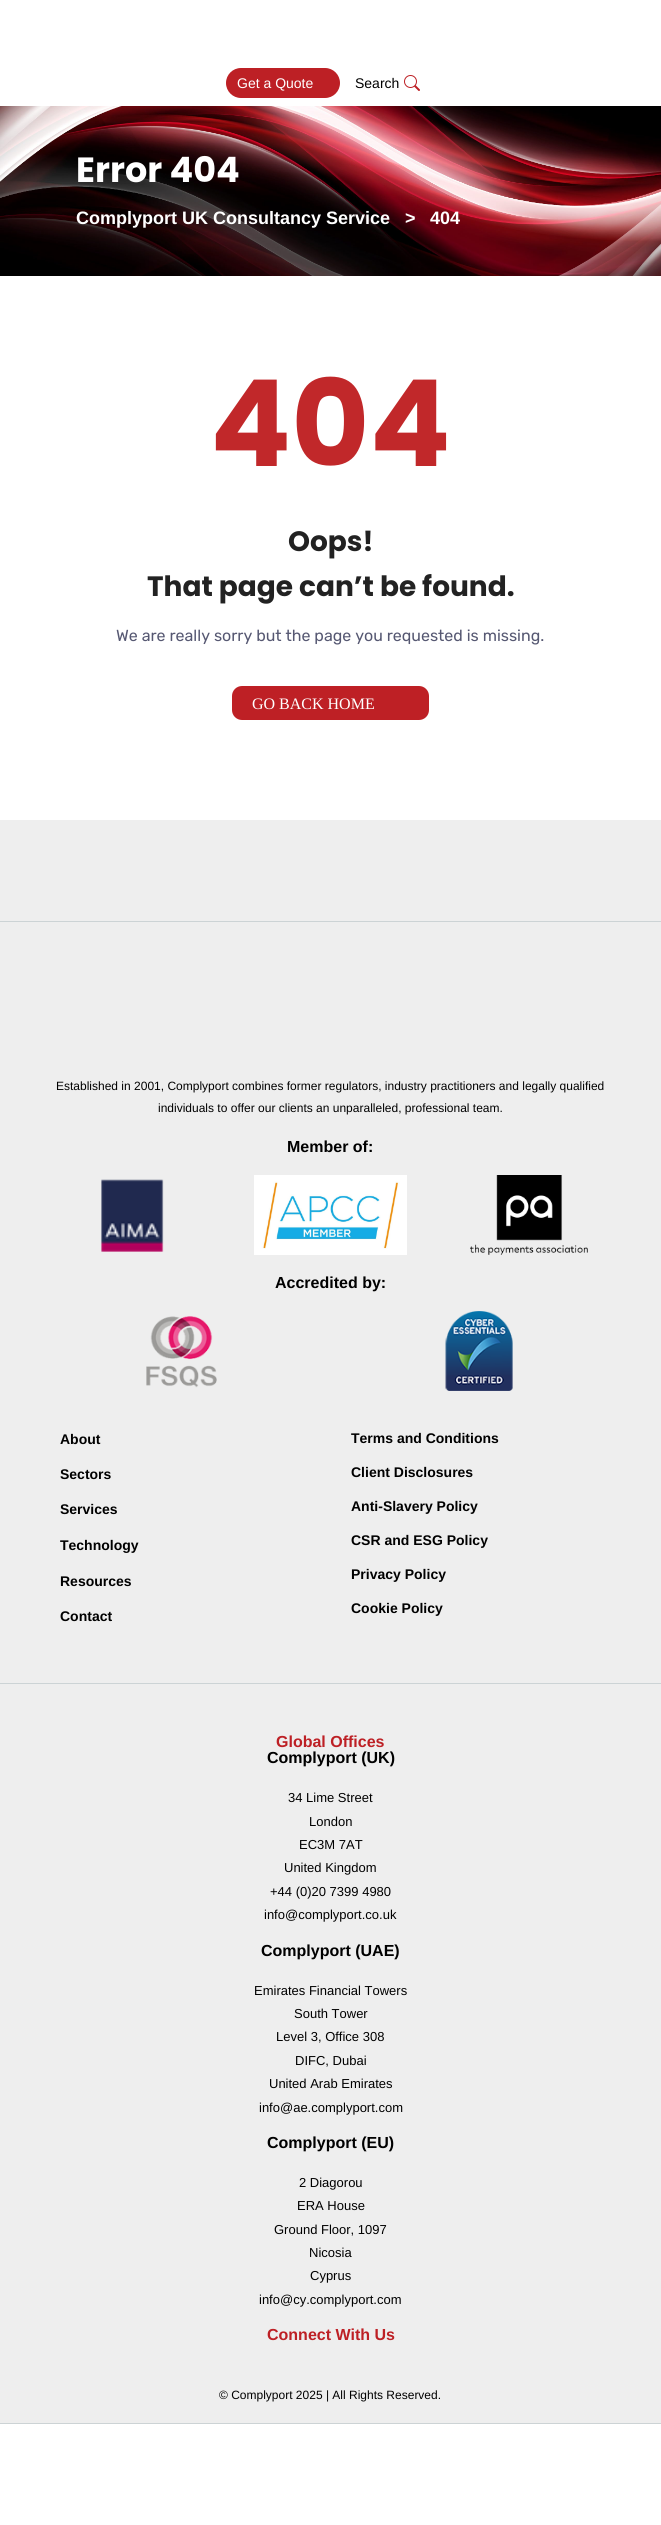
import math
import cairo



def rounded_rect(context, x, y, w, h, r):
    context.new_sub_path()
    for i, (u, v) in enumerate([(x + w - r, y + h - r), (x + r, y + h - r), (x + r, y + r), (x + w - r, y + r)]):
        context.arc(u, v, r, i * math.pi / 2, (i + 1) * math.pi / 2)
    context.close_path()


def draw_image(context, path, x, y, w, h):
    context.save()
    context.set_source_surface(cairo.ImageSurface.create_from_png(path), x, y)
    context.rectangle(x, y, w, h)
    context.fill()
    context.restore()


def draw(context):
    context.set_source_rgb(1, 1, 1)
    context.paint()
    context.set_source_rgb(189 / 255, 32 / 255, 37 / 255)
    rounded_rect(context, 226, 68, 114, 30, 15)
    context.fill()
    draw_image(context, "images/1.png", 404, 75, 16, 16)
    draw_image(context, "images/2.png", 0, 106, 661, 170)
    context.set_source_rgb(190 / 255, 32 / 255, 37 / 255)
    rounded_rect(context, 232, 686, 197, 34, 10)
    context.fill()
    context.set_source_rgb(238 / 255, 238 / 255, 238 / 255)
    context.rectangle(0, 820, 661, 101)
    context.fill()
    context.set_source_rgb(204 / 255, 211 / 255, 213 / 255)
    context.rectangle(0, 921, 661, 1)
    context.fill()
    context.set_source_rgb(238 / 255, 238 / 255, 238 / 255)
    context.rectangle(0, 922, 661, 761)
    context.fill()
    context.set_source_rgb(204 / 255, 211 / 255, 213 / 255)
    context.rectangle(0, 1683, 661, 1)
    context.fill()
    draw_image(context, "images/3.png", 101, 1179, 63, 73)
    draw_image(context, "images/4.png", 254, 1175, 153, 80)
    draw_image(context, "images/5.png", 470, 1175, 118, 80)
    draw_image(context, "images/6.png", 146, 1316, 71, 72)
    draw_image(context, "images/7.png", 445, 1311, 68, 80)
    context.set_source_rgb(238 / 255, 238 / 255, 238 / 255)
    context.rectangle(0, 1684, 661, 739)
    context.fill()
    context.set_source_rgb(204 / 255, 211 / 255, 213 / 255)
    context.rectangle(0, 2423, 661, 1)
    context.fill()
    context.select_font_face("Liberation Sans")
    context.set_font_size(14)
    context.set_source_rgb(1, 1, 1)
    context.move_to(237, 88)
    context.show_text("Get a Quote")
    context.set_source_rgb(0, 0, 0)
    context.move_to(355, 88)
    context.show_text("Search")
    context.select_font_face("Poppins", cairo.FontSlant.NORMAL, cairo.FontWeight.BOLD)
    context.set_font_size(35)
    context.set_source_rgb(1, 1, 1)
    context.move_to(76, 182)
    context.show_text("Error 404")
    context.select_font_face("Liberation Sans", cairo.FontSlant.NORMAL, cairo.FontWeight.BOLD)
    context.set_font_size(18)
    context.move_to(76, 224)
    context.show_text("Complyport UK Consultancy Service")
    context.move_to(405, 224)
    context.show_text(">")
    context.move_to(430, 224)
    context.show_text("404")
    context.select_font_face("Poppins", cairo.FontSlant.NORMAL, cairo.FontWeight.BOLD)
    context.set_font_size(120)
    context.set_source_rgb(193 / 255, 40 / 255, 42 / 255)
    context.move_to(210, 466)
    context.show_text("404")
    context.set_font_size(28)
    context.set_source_rgb(34 / 255, 34 / 255, 34 / 255)
    context.move_to(288, 551)
    context.show_text("Oops!")
    context.move_to(147, 596)
    context.show_text("That page can’t be found.")
    context.select_font_face("Rubik")
    context.set_font_size(16)
    context.set_source_rgb(86 / 255, 88 / 255, 114 / 255)
    context.move_to(116, 641)
    context.show_text("We are really sorry but the page you requested is missing.")
    context.select_font_face("Liberation Serif")
    context.set_source_rgb(1, 1, 1)
    context.move_to(252, 709)
    context.show_text("GO BACK HOME")
    context.select_font_face("Liberation Sans")
    context.set_font_size(12)
    context.set_source_rgb(0, 0, 0)
    context.move_to(56, 1090)
    context.show_text("Established in 2001, Complyport combines former regulators, industry practitioners and legally qualified")
    context.move_to(158, 1112)
    context.show_text("individuals to offer our clients an unparalleled, professional team.")
    context.select_font_face("Liberation Sans", cairo.FontSlant.NORMAL, cairo.FontWeight.BOLD)
    context.set_font_size(16)
    context.move_to(287, 1152)
    context.show_text("Member of:")
    context.move_to(275, 1288)
    context.show_text("Accredited by:")
    context.set_font_size(14)
    context.move_to(60, 1444)
    context.show_text("About")
    context.move_to(60, 1479)
    context.show_text("Sectors")
    context.move_to(60, 1514)
    context.show_text("Services")
    context.move_to(60, 1550)
    context.show_text("Technology")
    context.move_to(60, 1586)
    context.show_text("Resources")
    context.move_to(60, 1621)
    context.show_text("Contact")
    context.move_to(351, 1443)
    context.show_text("Terms and Conditions")
    context.move_to(351, 1477)
    context.show_text("Client Disclosures")
    context.move_to(351, 1511)
    context.show_text("Anti-Slavery Policy")
    context.move_to(351, 1545)
    context.show_text("CSR and ESG Policy")
    context.move_to(351, 1579)
    context.show_text("Privacy Policy")
    context.move_to(351, 1613)
    context.show_text("Cookie Policy")
    context.set_font_size(16)
    context.set_source_rgb(189 / 255, 32 / 255, 37 / 255)
    context.move_to(276, 1747)
    context.show_text("Global Offices")
    context.set_source_rgb(0, 0, 0)
    context.move_to(267, 1763)
    context.show_text("Complyport (UK)")
    context.select_font_face("Liberation Sans")
    context.set_font_size(13)
    context.move_to(288, 1802)
    context.show_text("34 Lime Street")
    context.move_to(309, 1826)
    context.show_text("London")
    context.move_to(299, 1849)
    context.show_text("EC3M 7AT")
    context.move_to(284, 1872)
    context.show_text("United Kingdom")
    context.move_to(270, 1896)
    context.show_text("+44 (0)20 7399 4980")
    context.move_to(264, 1919)
    context.show_text("info@complyport.co.uk")
    context.select_font_face("Liberation Sans", cairo.FontSlant.NORMAL, cairo.FontWeight.BOLD)
    context.set_font_size(16)
    context.move_to(261, 1956)
    context.show_text("Complyport (UAE)")
    context.select_font_face("Liberation Sans")
    context.set_font_size(13)
    context.move_to(254, 1995)
    context.show_text("Emirates Financial Towers")
    context.move_to(294, 2018)
    context.show_text("South Tower")
    context.move_to(276, 2041)
    context.show_text("Level 3, Office 308")
    context.move_to(295, 2065)
    context.show_text("DIFC, Dubai")
    context.move_to(269, 2088)
    context.show_text("United Arab Emirates")
    context.move_to(259, 2112)
    context.show_text("info@ae.complyport.com")
    context.select_font_face("Liberation Sans", cairo.FontSlant.NORMAL, cairo.FontWeight.BOLD)
    context.set_font_size(16)
    context.move_to(267, 2148)
    context.show_text("Complyport (EU)")
    context.select_font_face("Liberation Sans")
    context.set_font_size(13)
    context.move_to(299, 2187)
    context.show_text("2 Diagorou")
    context.move_to(297, 2210)
    context.show_text("ERA House")
    context.move_to(274, 2234)
    context.show_text("Ground Floor, 1097")
    context.move_to(309, 2257)
    context.show_text("Nicosia")
    context.move_to(310, 2280)
    context.show_text("Cyprus")
    context.move_to(259, 2304)
    context.show_text("info@cy.complyport.com")
    context.select_font_face("Liberation Sans", cairo.FontSlant.NORMAL, cairo.FontWeight.BOLD)
    context.set_font_size(16)
    context.set_source_rgb(189 / 255, 32 / 255, 37 / 255)
    context.move_to(267, 2340)
    context.show_text("Connect With Us")
    context.select_font_face("Liberation Sans")
    context.set_font_size(12)
    context.set_source_rgb(0, 0, 0)
    context.move_to(219, 2399)
    context.show_text("© Complyport 2025 | All Rights Reserved.")


surface = cairo.ImageSurface(cairo.Format.RGB24, 661, 2525)
context = cairo.Context(surface)
options = cairo.FontOptions()
options.set_hint_metrics(cairo.HintMetrics.OFF)
options.set_hint_style(cairo.HintStyle.NONE)
context.set_font_options(options)
context.set_miter_limit(4)
draw(context)
surface.write_to_png("out.png")
